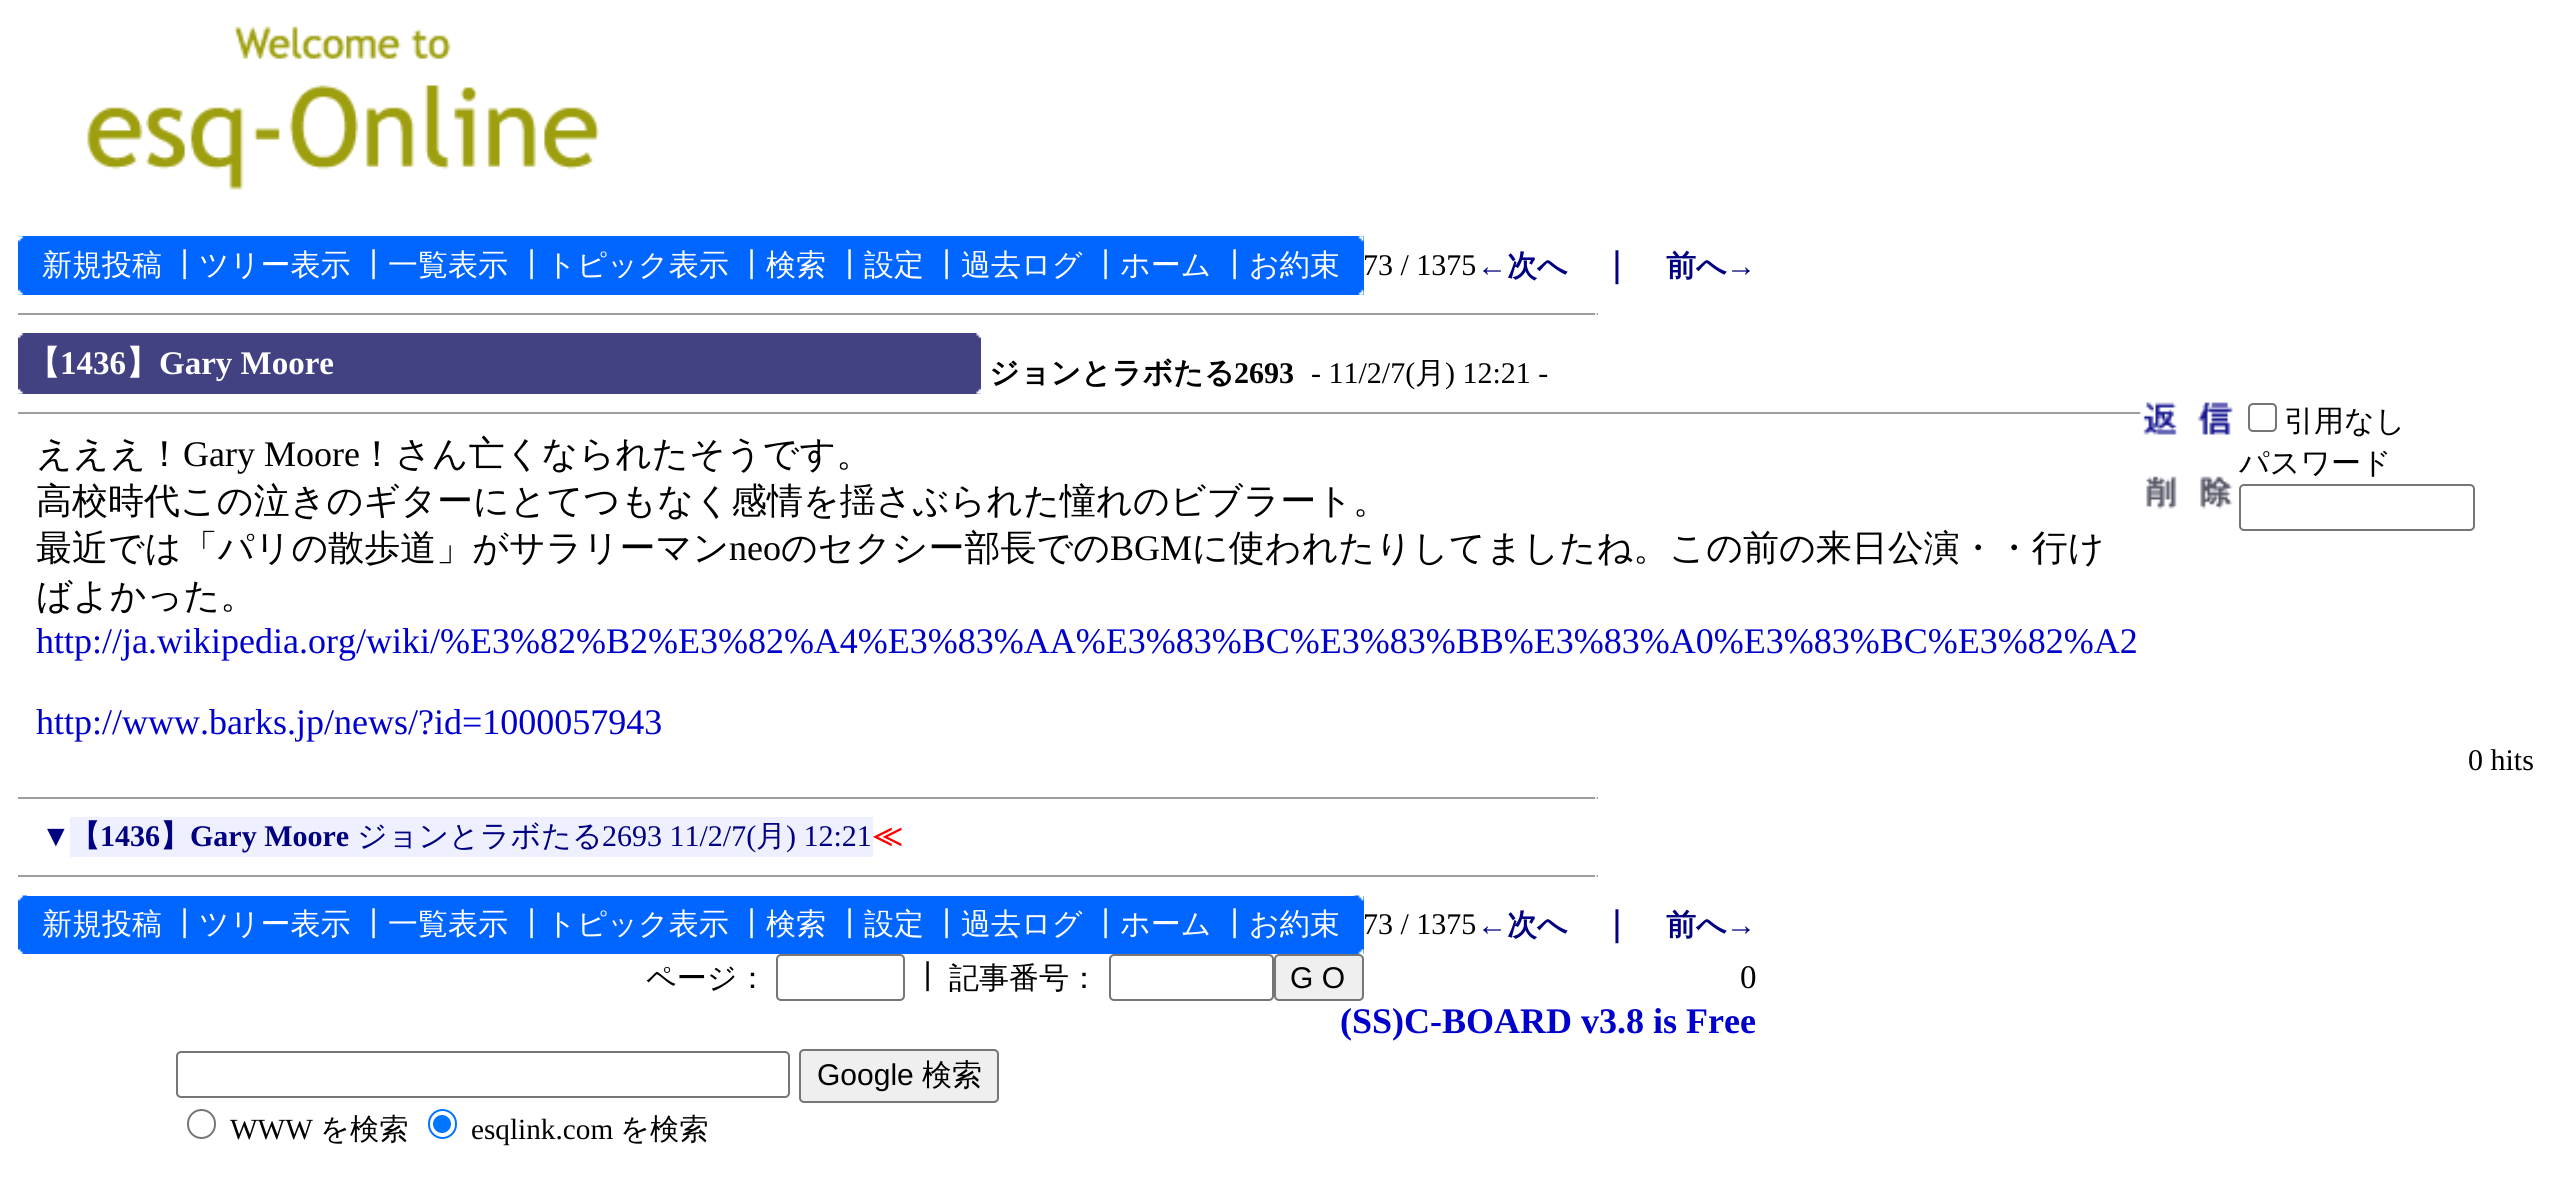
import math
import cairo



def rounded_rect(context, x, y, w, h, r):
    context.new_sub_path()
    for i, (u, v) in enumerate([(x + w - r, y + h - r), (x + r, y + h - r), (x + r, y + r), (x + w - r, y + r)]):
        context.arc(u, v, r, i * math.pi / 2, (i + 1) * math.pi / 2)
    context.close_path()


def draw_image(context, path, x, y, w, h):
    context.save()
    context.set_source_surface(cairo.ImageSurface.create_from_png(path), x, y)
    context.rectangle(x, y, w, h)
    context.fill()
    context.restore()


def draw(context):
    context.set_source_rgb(1, 1, 1)
    context.paint()
    draw_image(context, "images/1.png", 87, 26, 512, 164)
    context.set_source_rgb(0, 102 / 255, 1)
    context.rectangle(18, 236, 1346, 59)
    context.fill()
    draw_image(context, "images/2.png", 18, 236, 6, 6)
    draw_image(context, "images/3.png", 1358, 236, 6, 6)
    draw_image(context, "images/4.png", 18, 289, 6, 6)
    draw_image(context, "images/5.png", 1358, 289, 6, 6)
    context.set_source_rgb(159 / 255, 159 / 255, 159 / 255)
    context.rectangle(18, 313, 1580, 2)
    context.fill()
    context.set_source_rgb(238 / 255, 238 / 255, 238 / 255)
    context.rectangle(1595, 313, 2, 2)
    context.fill()
    context.set_source_rgb(66 / 255, 66 / 255, 130 / 255)
    context.rectangle(18, 333, 963, 61)
    context.fill()
    draw_image(context, "images/6.png", 18, 333, 6, 6)
    draw_image(context, "images/7.png", 976, 333, 5, 6)
    draw_image(context, "images/8.png", 18, 388, 6, 6)
    draw_image(context, "images/9.png", 976, 388, 5, 6)
    context.set_source_rgb(159 / 255, 159 / 255, 159 / 255)
    context.rectangle(18, 412, 2124, 2)
    context.fill()
    context.set_source_rgb(238 / 255, 238 / 255, 238 / 255)
    context.rectangle(2140, 412, 2, 2)
    context.fill()
    draw_image(context, "images/10.png", 2143, 402, 90, 33)
    rounded_rect(context, 2249, 404, 27, 27, 4)
    context.set_source_rgb(118 / 255, 118 / 255, 118 / 255)
    context.stroke()
    rounded_rect(context, 2240, 485, 234, 45, 4)
    context.stroke()
    draw_image(context, "images/11.png", 2146, 476, 87, 33)
    context.set_source_rgb(159 / 255, 159 / 255, 159 / 255)
    context.rectangle(18, 797, 1580, 2)
    context.fill()
    context.set_source_rgb(238 / 255, 238 / 255, 238 / 255)
    context.rectangle(1595, 797, 2, 2)
    context.fill()
    context.set_source_rgb(239 / 255, 240 / 255, 1)
    context.rectangle(70, 817, 803, 40)
    context.fill()
    context.set_source_rgb(159 / 255, 159 / 255, 159 / 255)
    context.rectangle(18, 875, 1580, 2)
    context.fill()
    context.set_source_rgb(238 / 255, 238 / 255, 238 / 255)
    context.rectangle(1595, 875, 2, 2)
    context.fill()
    context.set_source_rgb(0, 102 / 255, 1)
    context.rectangle(18, 896, 1346, 58)
    context.fill()
    draw_image(context, "images/12.png", 18, 895, 9, 6)
    draw_image(context, "images/13.png", 1354, 895, 10, 6)
    draw_image(context, "images/14.png", 18, 949, 6, 5)
    draw_image(context, "images/15.png", 1358, 949, 6, 5)
    rounded_rect(context, 777, 955, 127, 45, 4)
    context.set_source_rgb(118 / 255, 118 / 255, 118 / 255)
    context.stroke()
    rounded_rect(context, 1110, 955, 163, 45, 4)
    context.stroke()
    context.set_source_rgb(239 / 255, 239 / 255, 239 / 255)
    rounded_rect(context, 1275, 955, 88, 45, 4)
    context.fill_preserve()
    context.set_source_rgb(118 / 255, 118 / 255, 118 / 255)
    context.stroke()
    rounded_rect(context, 177, 1052, 612, 45, 4)
    context.stroke()
    context.set_source_rgb(239 / 255, 239 / 255, 239 / 255)
    rounded_rect(context, 800, 1050, 198, 52, 4)
    context.fill_preserve()
    context.set_source_rgb(118 / 255, 118 / 255, 118 / 255)
    context.stroke()
    rounded_rect(context, 188, 1110, 27, 28, 13.5)
    context.stroke()
    rounded_rect(context, 429, 1110, 27, 28, 13.5)
    context.set_source_rgb(0, 117 / 255, 1)
    context.stroke()
    context.arc(442, 1124, 9, 0, 2 * math.pi)
    context.fill()
    context.select_font_face("WenQuanYi Zen Hei Medium")
    context.set_font_size(30)
    context.set_source_rgb(1, 1, 1)
    context.move_to(42, 275)
    context.show_text("新規投稿")
    context.move_to(169, 275)
    context.show_text("┃ツリー表示")
    context.move_to(358, 275)
    context.show_text("┃一覧表示")
    context.move_to(516, 275)
    context.show_text("┃トピック表示")
    context.move_to(736, 275)
    context.show_text("┃検索")
    context.move_to(834, 275)
    context.show_text("┃設定")
    context.move_to(931, 275)
    context.show_text("┃過去ログ")
    context.move_to(1090, 275)
    context.show_text("┃ホーム")
    context.move_to(1219, 275)
    context.show_text("┃お約束")
    context.select_font_face("Liberation Serif")
    context.set_source_rgb(0, 0, 0)
    context.move_to(1363, 275)
    context.show_text("73 / 1375")
    context.select_font_face("Liberation Serif", cairo.FontSlant.NORMAL, cairo.FontWeight.BOLD)
    context.set_source_rgb(0, 0, 128 / 255)
    context.move_to(1477, 276)
    context.show_text("←")
    context.select_font_face("WenQuanYi Zen Hei", cairo.FontSlant.NORMAL, cairo.FontWeight.BOLD)
    context.move_to(1507, 276)
    context.show_text("次へ")
    context.set_font_size(33)
    context.move_to(1600, 276)
    context.show_text("｜")
    context.set_font_size(30)
    context.move_to(1666, 276)
    context.show_text("前へ")
    context.select_font_face("Liberation Serif", cairo.FontSlant.NORMAL, cairo.FontWeight.BOLD)
    context.move_to(1726, 276)
    context.show_text("→")
    context.select_font_face("WenQuanYi Zen Hei", cairo.FontSlant.NORMAL, cairo.FontWeight.BOLD)
    context.set_font_size(33)
    context.set_source_rgb(1, 1, 1)
    context.move_to(27, 374)
    context.show_text("【")
    context.select_font_face("Liberation Serif", cairo.FontSlant.NORMAL, cairo.FontWeight.BOLD)
    context.move_to(60, 374)
    context.show_text("1436")
    context.select_font_face("WenQuanYi Zen Hei", cairo.FontSlant.NORMAL, cairo.FontWeight.BOLD)
    context.move_to(126, 374)
    context.show_text("】")
    context.select_font_face("Liberation Serif", cairo.FontSlant.NORMAL, cairo.FontWeight.BOLD)
    context.move_to(159, 374)
    context.show_text("Gary Moore")
    context.select_font_face("WenQuanYi Zen Hei", cairo.FontSlant.NORMAL, cairo.FontWeight.BOLD)
    context.set_font_size(30)
    context.set_source_rgb(0, 0, 0)
    context.move_to(989, 383)
    context.show_text("ジョンとラボたる")
    context.select_font_face("Liberation Serif", cairo.FontSlant.NORMAL, cairo.FontWeight.BOLD)
    context.move_to(1234, 383)
    context.show_text("2693")
    context.select_font_face("Liberation Serif")
    context.move_to(1311, 383)
    context.show_text("- 11/2/7(")
    context.select_font_face("WenQuanYi Zen Hei Medium")
    context.move_to(1415, 383)
    context.show_text("月")
    context.select_font_face("Liberation Serif")
    context.move_to(1445, 383)
    context.show_text(") 12:21 -")
    context.select_font_face("WenQuanYi Zen Hei Medium")
    context.set_font_size(36)
    context.move_to(36, 466)
    context.show_text("えええ！")
    context.select_font_face("Liberation Serif")
    context.move_to(183, 466)
    context.show_text("Gary Moore")
    context.select_font_face("WenQuanYi Zen Hei Medium")
    context.move_to(359, 466)
    context.show_text("！さん亡くなられたそうです。")
    context.move_to(36, 513)
    context.show_text("高校時代この泣きのギターにとてつもなく感情を揺さぶられた憧れのビブラート。")
    context.move_to(36, 560)
    context.show_text("最近では「パリの散歩道」がサラリーマン")
    context.select_font_face("Liberation Serif")
    context.move_to(729, 560)
    context.show_text("neo")
    context.select_font_face("WenQuanYi Zen Hei Medium")
    context.move_to(781, 560)
    context.show_text("のセクシー部長での")
    context.select_font_face("Liberation Serif")
    context.move_to(1110, 560)
    context.show_text("BGM")
    context.select_font_face("WenQuanYi Zen Hei Medium")
    context.move_to(1192, 560)
    context.show_text("に使われたりしてましたね。この前の来日公演・・行け")
    context.move_to(36, 608)
    context.show_text("ばよかった。")
    context.select_font_face("Liberation Serif")
    context.set_source_rgb(0, 0, 204 / 255)
    context.move_to(36, 653)
    context.show_text("http://ja.wikipedia.org/wiki/%E3%82%B2%E3%82%A4%E3%83%AA%E3%83%BC%E3%83%BB%E3%83%A0%E3%83%BC%E3%82%A2")
    context.move_to(36, 734)
    context.show_text("http://www.barks.jp/news/?id=1000057943")
    context.select_font_face("WenQuanYi Zen Hei Medium")
    context.set_font_size(30)
    context.set_source_rgb(0, 0, 0)
    context.move_to(2284, 431)
    context.show_text("引用なし")
    context.move_to(2239, 473)
    context.show_text("パスワード")
    context.select_font_face("Liberation Serif")
    context.move_to(2468, 770)
    context.show_text("0 hits")
    context.set_source_rgb(0, 0, 128 / 255)
    context.move_to(41, 846)
    context.show_text("▼")
    context.select_font_face("WenQuanYi Zen Hei", cairo.FontSlant.NORMAL, cairo.FontWeight.BOLD)
    context.move_to(70, 846)
    context.show_text("【")
    context.select_font_face("Liberation Serif", cairo.FontSlant.NORMAL, cairo.FontWeight.BOLD)
    context.move_to(100, 846)
    context.show_text("1436")
    context.select_font_face("WenQuanYi Zen Hei", cairo.FontSlant.NORMAL, cairo.FontWeight.BOLD)
    context.move_to(160, 846)
    context.show_text("】")
    context.select_font_face("Liberation Serif", cairo.FontSlant.NORMAL, cairo.FontWeight.BOLD)
    context.move_to(190, 846)
    context.show_text("Gary Moore")
    context.select_font_face("WenQuanYi Zen Hei Medium")
    context.move_to(357, 846)
    context.show_text("ジョンとラボたる")
    context.select_font_face("Liberation Serif")
    context.move_to(602, 846)
    context.show_text("2693 11/2/7(")
    context.select_font_face("WenQuanYi Zen Hei Medium")
    context.move_to(756, 846)
    context.show_text("月")
    context.select_font_face("Liberation Serif")
    context.move_to(786, 846)
    context.show_text(") 12:21")
    context.select_font_face("WenQuanYi Zen Hei", cairo.FontSlant.NORMAL, cairo.FontWeight.BOLD)
    context.set_source_rgb(1, 0, 0)
    context.move_to(872, 846)
    context.show_text("≪")
    context.select_font_face("WenQuanYi Zen Hei Medium")
    context.set_source_rgb(1, 1, 1)
    context.move_to(42, 934)
    context.show_text("新規投稿")
    context.move_to(169, 934)
    context.show_text("┃ツリー表示")
    context.move_to(358, 934)
    context.show_text("┃一覧表示")
    context.move_to(516, 934)
    context.show_text("┃トピック表示")
    context.move_to(736, 934)
    context.show_text("┃検索")
    context.move_to(834, 934)
    context.show_text("┃設定")
    context.move_to(931, 934)
    context.show_text("┃過去ログ")
    context.move_to(1090, 934)
    context.show_text("┃ホーム")
    context.move_to(1219, 934)
    context.show_text("┃お約束")
    context.select_font_face("Liberation Serif")
    context.set_source_rgb(0, 0, 0)
    context.move_to(1363, 934)
    context.show_text("73 / 1375")
    context.select_font_face("Liberation Serif", cairo.FontSlant.NORMAL, cairo.FontWeight.BOLD)
    context.set_source_rgb(0, 0, 128 / 255)
    context.move_to(1477, 935)
    context.show_text("←")
    context.select_font_face("WenQuanYi Zen Hei", cairo.FontSlant.NORMAL, cairo.FontWeight.BOLD)
    context.move_to(1507, 935)
    context.show_text("次へ")
    context.set_font_size(33)
    context.move_to(1600, 935)
    context.show_text("｜")
    context.set_font_size(30)
    context.move_to(1666, 935)
    context.show_text("前へ")
    context.select_font_face("Liberation Serif", cairo.FontSlant.NORMAL, cairo.FontWeight.BOLD)
    context.move_to(1726, 935)
    context.show_text("→")
    context.select_font_face("WenQuanYi Zen Hei Medium")
    context.set_source_rgb(0, 0, 0)
    context.move_to(646, 988)
    context.show_text("ページ：")
    context.move_to(912, 987)
    context.show_text("┃")
    context.move_to(949, 988)
    context.show_text("記事番号：")
    context.select_font_face("Liberation Sans")
    context.move_to(1290, 988)
    context.show_text("G O")
    context.select_font_face("Liberation Serif")
    context.set_font_size(33)
    context.move_to(1740, 988)
    context.show_text("0")
    context.select_font_face("Liberation Serif", cairo.FontSlant.NORMAL, cairo.FontWeight.BOLD)
    context.set_font_size(36)
    context.set_source_rgb(0, 0, 204 / 255)
    context.move_to(1340, 1033)
    context.show_text("(SS)C-BOARD v3.8 is Free")
    context.select_font_face("Liberation Sans")
    context.set_font_size(30)
    context.set_source_rgb(0, 0, 0)
    context.move_to(817, 1085)
    context.show_text("Google")
    context.select_font_face("WenQuanYi Zen Hei Medium")
    context.move_to(922, 1085)
    context.show_text("検索")
    context.select_font_face("Liberation Serif")
    context.set_font_size(29.25)
    context.move_to(230, 1139)
    context.show_text("WWW")
    context.select_font_face("WenQuanYi Zen Hei Medium")
    context.move_to(320, 1139)
    context.show_text("を検索")
    context.select_font_face("Liberation Serif")
    context.move_to(471, 1139)
    context.show_text("esqlink.com")
    context.select_font_face("WenQuanYi Zen Hei Medium")
    context.move_to(620, 1139)
    context.show_text("を検索")


surface = cairo.ImageSurface(cairo.Format.RGB24, 2551, 1204)
context = cairo.Context(surface)
options = cairo.FontOptions()
options.set_hint_metrics(cairo.HintMetrics.OFF)
options.set_hint_style(cairo.HintStyle.NONE)
context.set_font_options(options)
context.set_miter_limit(4)
draw(context)
surface.write_to_png("out.png")
